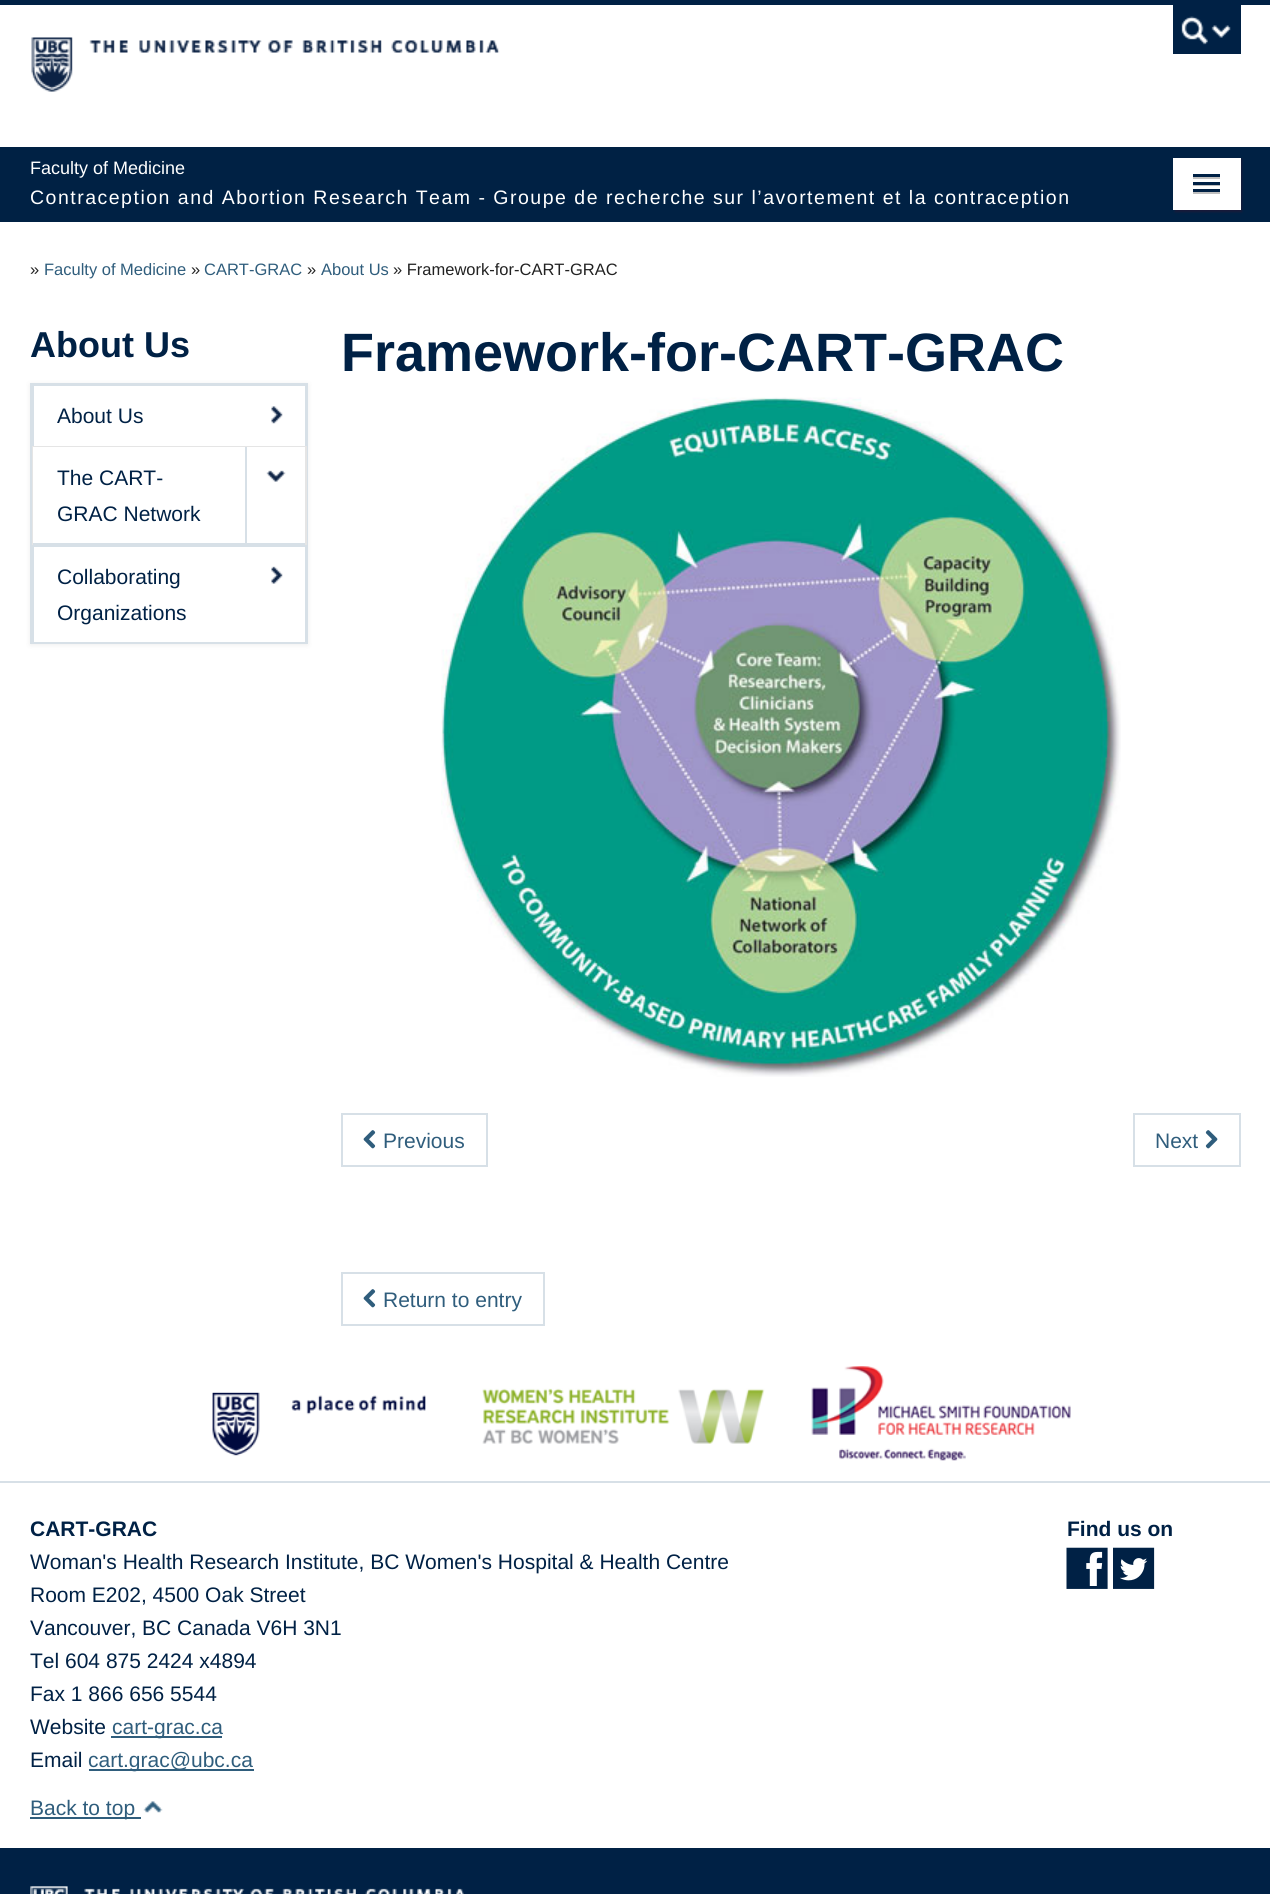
import math
import cairo



def draw_spaced(context, x, y, s, letter, word):
    context.move_to(x, y)
    for ch in s:
        context.show_text(ch)
        context.rel_move_to(letter + word * (ch == ' '), 0)


def rounded_rect(context, x, y, w, h, r):
    context.new_sub_path()
    for i, (u, v) in enumerate([(x + w - r, y + h - r), (x + r, y + h - r), (x + r, y + r), (x + w - r, y + r)]):
        context.arc(u, v, r, i * math.pi / 2, (i + 1) * math.pi / 2)
    context.close_path()


def draw_shadow(context, x, y, w, h, r, blur, alpha):
    context.push_group_with_content(cairo.Content.ALPHA)
    context.set_operator(cairo.Operator.SOURCE)
    for i in range(15, -16, -2):
        e = blur * i / 6
        if min(w, h) + 2 * e > 0:
            context.set_source_rgba(0, 0, 0, alpha * math.erfc((i - 1) / 8.5) / 2)
            rounded_rect(context, x - e, y - e, w + 2 * e, h + 2 * e, max(0, min(r + e + blur * .6, min(w, h) / 2 + e)))
            context.fill()
    context.mask(context.pop_group())


def draw_image(context, path, x, y, w, h):
    context.save()
    context.set_source_surface(cairo.ImageSurface.create_from_png(path), x, y)
    context.rectangle(x, y, w, h)
    context.fill()
    context.restore()


def draw(context):
    context.set_source_rgb(1, 1, 1)
    context.paint()
    context.set_source_rgb(0, 33 / 255, 69 / 255)
    context.rectangle(0, 0, 1270, 5)
    context.fill()
    draw_image(context, "images/1.png", 31, 37, 469, 55)
    context.rectangle(1173, 5, 68, 49)
    context.fill()
    draw_image(context, "images/2.png", 1181, 16, 50, 29)
    context.set_source_rgb(0, 33 / 255, 68 / 255)
    context.rectangle(0, 147, 1270, 75)
    context.fill()
    context.set_source_rgb(25 / 255, 25 / 255, 56 / 255)
    draw_shadow(context, 1175, 159, 67, 53, 0, 1, 1)
    context.set_source_rgb(1, 1, 1)
    context.rectangle(1173, 158, 68, 52)
    context.fill()
    context.set_source_rgb(191 / 255, 191 / 255, 191 / 255)
    context.new_path()
    context.move_to(1193, 177)
    context.line_to(1193, 179)
    context.line_to(1220, 179)
    context.line_to(1220, 176)
    context.line_to(1219.5, 176)
    context.line_to(1219.5, 177)
    context.close_path()
    context.fill()
    context.set_source_rgb(0, 33 / 255, 69 / 255)
    context.rectangle(1193, 174, 27, 3)
    context.fill()
    context.set_source_rgb(191 / 255, 191 / 255, 191 / 255)
    context.new_path()
    context.move_to(1193, 184.5)
    context.line_to(1193, 186)
    context.line_to(1220, 186)
    context.line_to(1220, 183)
    context.line_to(1219.5, 183)
    context.line_to(1219.5, 184.5)
    context.close_path()
    context.fill()
    context.set_source_rgb(0, 33 / 255, 69 / 255)
    context.rectangle(1193, 182, 27, 3)
    context.fill()
    context.set_source_rgb(191 / 255, 191 / 255, 191 / 255)
    context.new_path()
    context.move_to(1193, 192)
    context.line_to(1193, 194)
    context.line_to(1220, 194)
    context.line_to(1220, 191)
    context.line_to(1219.5, 191)
    context.line_to(1219.5, 192)
    context.close_path()
    context.fill()
    context.set_source_rgb(0, 33 / 255, 69 / 255)
    context.rectangle(1193, 189, 27, 3)
    context.fill()
    context.set_source_rgb(0, 0, 0)
    draw_shadow(context, 30, 384, 278, 261, 0, 3, 0.07)
    context.set_source_rgb(1, 1, 1)
    context.rectangle(34, 386, 271, 256)
    context.fill()
    context.rectangle(31, 384, 276, 259)
    context.set_source_rgb(215 / 255, 224 / 255, 231 / 255)
    context.stroke()
    context.rectangle(32, 385, 274, 1)
    context.fill()
    context.rectangle(305, 384, 1, 62)
    context.fill()
    context.rectangle(32, 384, 2, 62)
    context.fill()
    draw_image(context, "images/3.png", 271, 406, 12, 18)
    context.set_source_rgb(229 / 255, 229 / 255, 229 / 255)
    context.rectangle(32, 446, 274, 1)
    context.fill()
    context.rectangle(305, 446, 2, 99)
    context.fill()
    context.rectangle(32, 446, 2, 99)
    context.fill()
    context.set_source_rgb(1, 1, 1)
    context.rectangle(33, 447, 1, 96)
    context.fill()
    context.set_source_rgb(215 / 255, 224 / 255, 231 / 255)
    context.rectangle(33, 543, 272, 2)
    context.fill()
    context.rectangle(245, 447, 2, 96)
    context.fill()
    draw_image(context, "images/4.png", 266, 470, 20, 12)
    context.rectangle(32, 545, 274, 2)
    context.fill()
    context.rectangle(305, 545, 1, 97)
    context.fill()
    context.rectangle(32, 545, 2, 97)
    context.fill()
    draw_image(context, "images/5.png", 271, 566, 12, 18)
    draw_image(context, "images/6.png", 441, 397, 680, 680)
    context.rectangle(342, 1114, 145, 52)
    context.stroke()
    draw_image(context, "images/7.png", 363, 1130, 13, 19)
    context.rectangle(1134, 1114, 106, 52)
    context.stroke()
    draw_image(context, "images/8.png", 1205, 1130, 13, 19)
    context.rectangle(342, 1273, 202, 52)
    context.stroke()
    draw_image(context, "images/7.png", 363, 1289, 13, 19)
    draw_image(context, "images/9.png", 212, 1366, 859, 95)
    context.set_source_rgb(0, 33 / 255, 69 / 255)
    context.rectangle(0, 1848, 1270, 46)
    context.fill()
    context.set_source_rgb(215 / 255, 224 / 255, 231 / 255)
    context.rectangle(0, 1481, 1270, 2)
    context.fill()
    context.set_source_rgb(47 / 255, 93 / 255, 124 / 255)
    context.rectangle(111, 1736, 111, 2)
    context.fill()
    context.rectangle(89, 1769, 165, 2)
    context.fill()
    draw_image(context, "images/10.png", 1066, 1547, 42, 42)
    draw_image(context, "images/11.png", 1113, 1547, 42, 42)
    context.rectangle(30, 1817, 111, 2)
    context.fill()
    draw_image(context, "images/12.png", 143, 1801, 20, 12)
    draw_image(context, "images/13.png", 30, 1886, 434, 8)
    context.select_font_face("Liberation Sans")
    context.set_font_size(18)
    context.set_source_rgb(1, 1, 1)
    context.move_to(30, 174)
    context.show_text("Faculty of Medicine")
    context.set_font_size(19.5)
    draw_spaced(context, 30, 204, "Contraception and Abortion Research Team - Groupe de recherche sur l’avortement et la contraception", 1.5, 0)
    context.set_font_size(16.5)
    context.set_source_rgb(34 / 255, 34 / 255, 34 / 255)
    context.move_to(30, 275)
    context.show_text("»")
    context.set_source_rgb(47 / 255, 93 / 255, 124 / 255)
    context.move_to(44, 275)
    context.show_text("Faculty of Medicine")
    context.set_source_rgb(34 / 255, 34 / 255, 34 / 255)
    context.move_to(191, 275)
    context.show_text("»")
    context.set_source_rgb(47 / 255, 93 / 255, 124 / 255)
    context.move_to(204, 275)
    context.show_text("CART-GRAC")
    context.set_source_rgb(34 / 255, 34 / 255, 34 / 255)
    context.move_to(307, 275)
    context.show_text("»")
    context.set_source_rgb(47 / 255, 93 / 255, 124 / 255)
    context.move_to(321, 275)
    context.show_text("About Us")
    context.set_source_rgb(34 / 255, 34 / 255, 34 / 255)
    context.move_to(393, 275)
    context.show_text("» Framework-for-CART-GRAC")
    context.select_font_face("Liberation Sans", cairo.FontSlant.NORMAL, cairo.FontWeight.BOLD)
    context.set_font_size(36)
    context.set_source_rgb(0, 33 / 255, 69 / 255)
    context.move_to(30, 357)
    context.show_text("About Us")
    context.select_font_face("Liberation Sans")
    context.set_font_size(21)
    context.move_to(57, 423)
    context.show_text("About Us")
    context.move_to(57, 485)
    context.show_text("The CART-")
    context.move_to(57, 521)
    context.show_text("GRAC Network")
    context.move_to(57, 584)
    context.show_text("Collaborating")
    context.move_to(57, 620)
    context.show_text("Organizations")
    context.select_font_face("Liberation Sans", cairo.FontSlant.NORMAL, cairo.FontWeight.BOLD)
    context.set_font_size(54)
    context.move_to(341, 371)
    context.show_text("Framework-for-CART-GRAC")
    context.select_font_face("Liberation Sans")
    context.set_font_size(21)
    context.set_source_rgb(47 / 255, 93 / 255, 124 / 255)
    context.move_to(383, 1148)
    context.show_text("Previous")
    context.move_to(1155, 1148)
    context.show_text("Next")
    context.move_to(383, 1307)
    context.show_text("Return to entry")
    context.select_font_face("Liberation Sans", cairo.FontSlant.NORMAL, cairo.FontWeight.BOLD)
    context.set_source_rgb(0, 33 / 255, 69 / 255)
    context.move_to(30, 1536)
    context.show_text("CART-GRAC")
    context.select_font_face("Liberation Sans")
    context.move_to(30, 1569)
    context.show_text("Woman's Health Research Institute, BC Women's Hospital & Health Centre")
    context.move_to(30, 1602)
    context.show_text("Room E202, 4500 Oak Street")
    context.move_to(30, 1635)
    context.show_text("Vancouver, BC Canada V6H 3N1")
    context.move_to(30, 1668)
    context.show_text("Tel 604 875 2424 x4894")
    context.move_to(30, 1701)
    context.show_text("Fax 1 866 656 5544")
    context.move_to(30, 1734)
    context.show_text("Website")
    context.set_source_rgb(47 / 255, 93 / 255, 124 / 255)
    context.move_to(112, 1734)
    context.show_text("cart-grac.ca")
    context.set_source_rgb(0, 33 / 255, 69 / 255)
    context.move_to(30, 1767)
    context.show_text("Email")
    context.set_source_rgb(47 / 255, 93 / 255, 124 / 255)
    context.move_to(88, 1767)
    context.show_text("cart.grac@ubc.ca")
    context.select_font_face("Liberation Sans", cairo.FontSlant.NORMAL, cairo.FontWeight.BOLD)
    context.set_source_rgb(0, 33 / 255, 69 / 255)
    context.move_to(1067, 1536)
    context.show_text("Find us on")
    context.select_font_face("Liberation Sans")
    context.set_source_rgb(47 / 255, 93 / 255, 124 / 255)
    context.move_to(30, 1815)
    context.show_text("Back to top")


surface = cairo.ImageSurface(cairo.Format.RGB24, 1270, 1894)
context = cairo.Context(surface)
options = cairo.FontOptions()
options.set_hint_metrics(cairo.HintMetrics.OFF)
options.set_hint_style(cairo.HintStyle.NONE)
context.set_font_options(options)
context.set_miter_limit(4)
draw(context)
surface.write_to_png("out.png")
